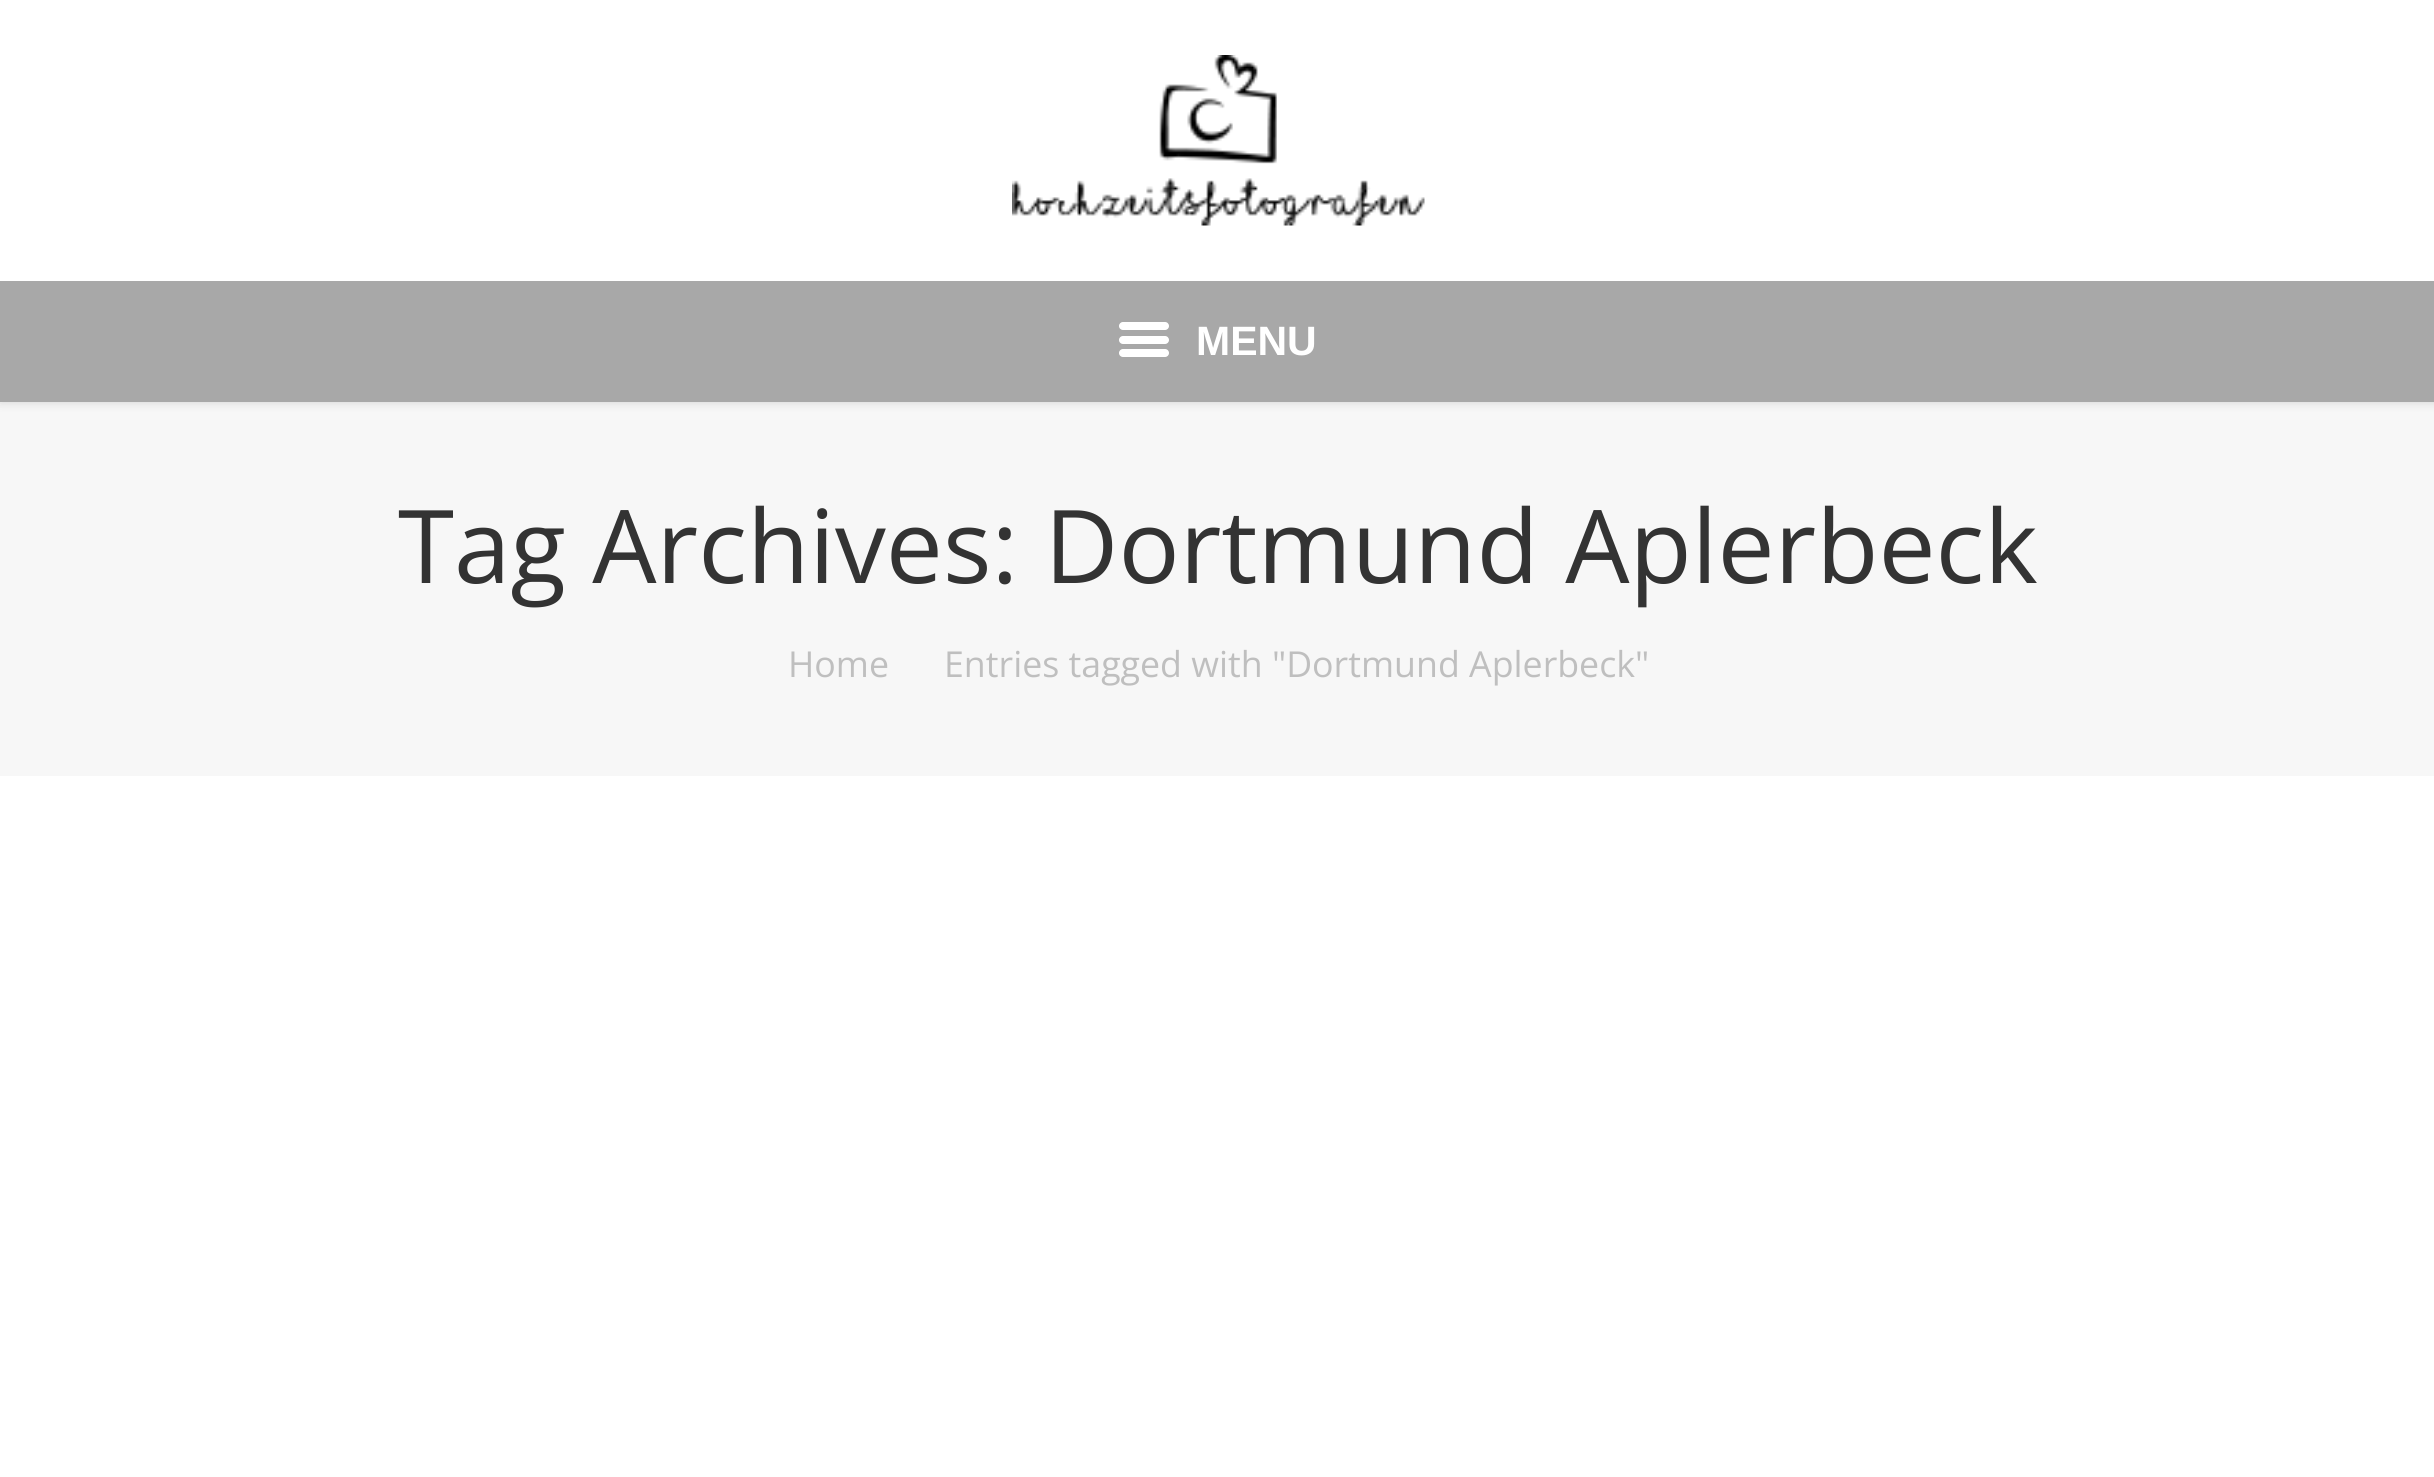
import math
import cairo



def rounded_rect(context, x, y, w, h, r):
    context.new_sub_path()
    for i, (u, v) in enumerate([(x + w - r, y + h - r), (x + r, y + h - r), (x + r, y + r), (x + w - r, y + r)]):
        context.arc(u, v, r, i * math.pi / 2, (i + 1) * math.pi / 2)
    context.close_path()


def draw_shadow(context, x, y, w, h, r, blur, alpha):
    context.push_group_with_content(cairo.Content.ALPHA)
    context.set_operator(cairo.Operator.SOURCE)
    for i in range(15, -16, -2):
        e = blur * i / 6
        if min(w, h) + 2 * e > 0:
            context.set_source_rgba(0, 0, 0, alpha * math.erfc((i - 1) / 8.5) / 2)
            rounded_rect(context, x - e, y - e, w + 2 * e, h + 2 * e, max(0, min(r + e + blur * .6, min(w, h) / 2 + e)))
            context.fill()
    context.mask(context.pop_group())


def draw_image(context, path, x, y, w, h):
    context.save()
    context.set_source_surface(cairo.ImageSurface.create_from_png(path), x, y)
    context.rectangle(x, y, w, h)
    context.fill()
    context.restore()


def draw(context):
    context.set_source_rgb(1, 1, 1)
    context.paint()
    context.set_source_rgb(247 / 255, 247 / 255, 247 / 255)
    context.rectangle(0, 402, 2434, 374)
    context.fill()
    context.set_source_rgb(0, 0, 0)
    draw_shadow(context, 0, 0, 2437, 402, 0, 5.5, 0.15)
    context.set_source_rgb(1, 1, 1)
    context.rectangle(0, 0, 2434, 281)
    context.fill()
    draw_image(context, "images/1.png", 1012, 55, 413, 171)
    context.set_source_rgb(168 / 255, 168 / 255, 168 / 255)
    context.rectangle(0, 281, 2434, 121)
    context.fill()
    context.set_source_rgb(1, 1, 1)
    rounded_rect(context, 1119, 336, 50, 8, 4)
    context.fill()
    rounded_rect(context, 1119, 322, 50, 8, 4)
    context.fill()
    rounded_rect(context, 1119, 349, 50, 8, 4)
    context.fill()
    context.select_font_face("Liberation Sans", cairo.FontSlant.NORMAL, cairo.FontWeight.BOLD)
    context.set_font_size(41)
    context.move_to(1196, 355)
    context.show_text("MENU")
    context.select_font_face("Open Sans")
    context.set_font_size(101.75)
    context.set_source_rgb(51 / 255, 51 / 255, 51 / 255)
    context.move_to(398, 583)
    context.show_text("Tag Archives: Dortmund Aplerbeck")
    context.set_font_size(35.75)
    context.set_source_rgb(191 / 255, 191 / 255, 191 / 255)
    context.move_to(788, 677)
    context.show_text("Home")
    context.move_to(944, 677)
    context.show_text("Entries tagged with \"Dortmund Aplerbeck\"")


surface = cairo.ImageSurface(cairo.Format.RGB24, 2434, 1477)
context = cairo.Context(surface)
options = cairo.FontOptions()
options.set_hint_metrics(cairo.HintMetrics.OFF)
options.set_hint_style(cairo.HintStyle.NONE)
context.set_font_options(options)
context.set_miter_limit(4)
draw(context)
surface.write_to_png("out.png")
